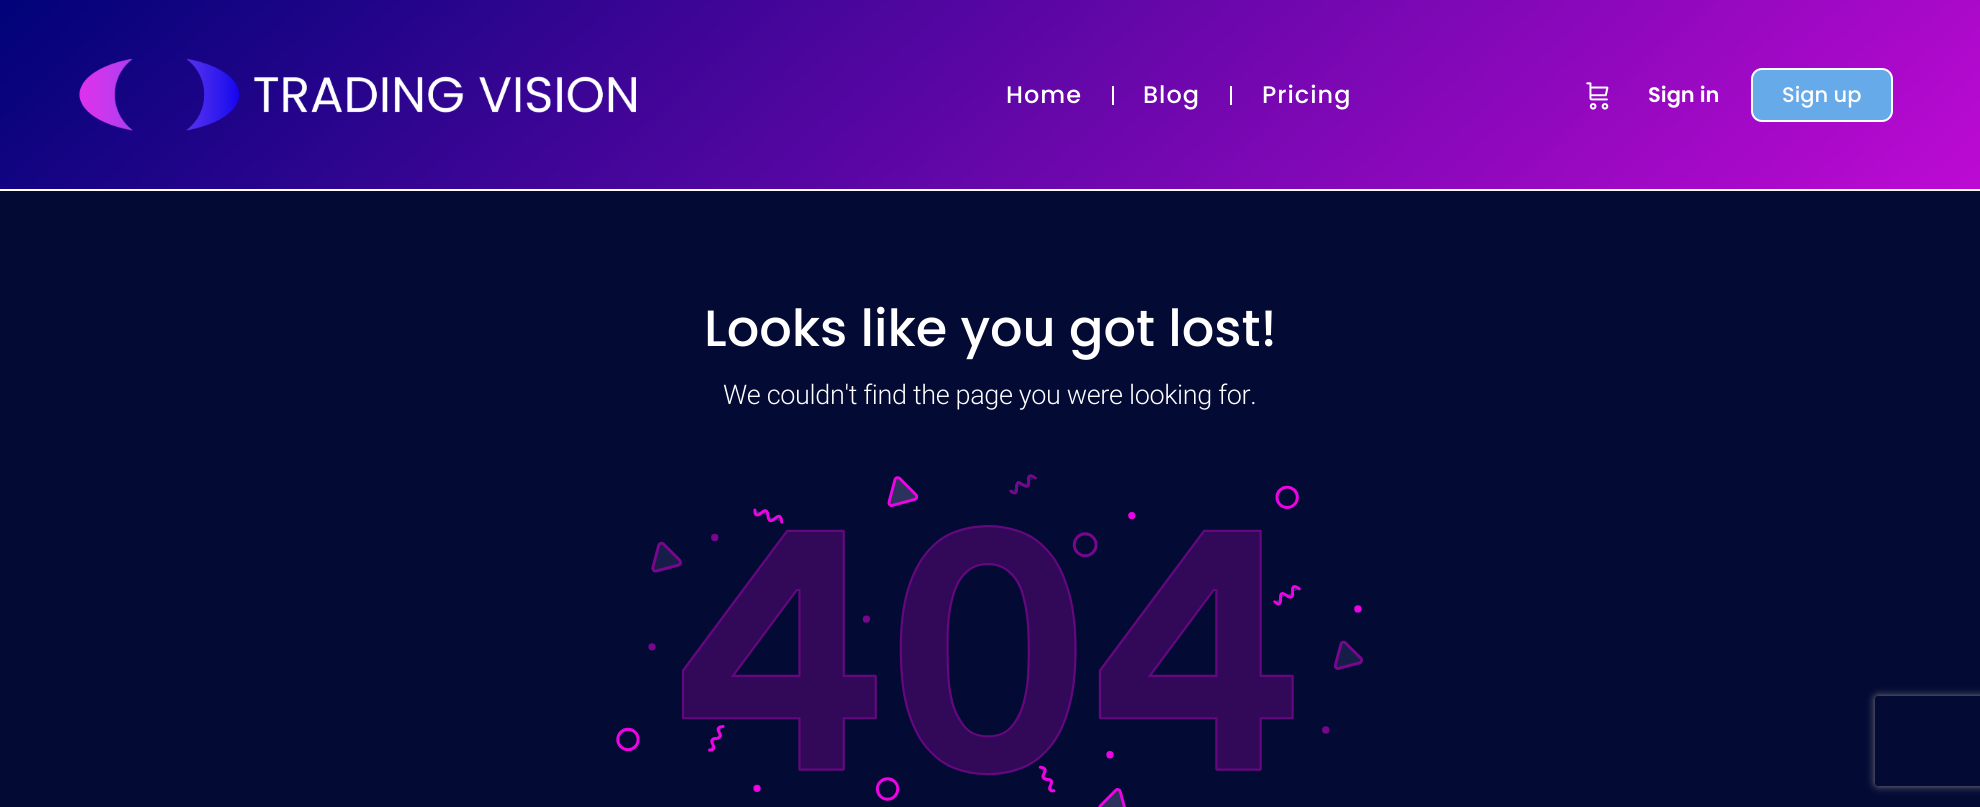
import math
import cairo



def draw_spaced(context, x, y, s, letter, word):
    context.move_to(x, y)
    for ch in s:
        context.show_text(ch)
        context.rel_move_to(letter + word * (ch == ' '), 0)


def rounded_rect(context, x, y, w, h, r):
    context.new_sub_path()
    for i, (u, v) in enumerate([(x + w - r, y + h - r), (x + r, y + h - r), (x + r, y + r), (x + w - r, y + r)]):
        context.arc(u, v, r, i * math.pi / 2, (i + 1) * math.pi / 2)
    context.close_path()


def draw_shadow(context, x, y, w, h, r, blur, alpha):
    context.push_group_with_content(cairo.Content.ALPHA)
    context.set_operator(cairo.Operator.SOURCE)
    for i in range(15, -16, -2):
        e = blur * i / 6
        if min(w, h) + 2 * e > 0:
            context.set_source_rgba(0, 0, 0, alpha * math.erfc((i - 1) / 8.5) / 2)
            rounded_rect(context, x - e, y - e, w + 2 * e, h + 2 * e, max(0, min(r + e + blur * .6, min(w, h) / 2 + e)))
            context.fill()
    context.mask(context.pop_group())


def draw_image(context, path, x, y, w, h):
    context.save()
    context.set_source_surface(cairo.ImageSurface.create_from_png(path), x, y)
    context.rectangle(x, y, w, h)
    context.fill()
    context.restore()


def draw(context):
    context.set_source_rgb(3 / 255, 10 / 255, 52 / 255)
    context.paint()
    gradient = cairo.LinearGradient(500, -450, 1480, 639)
    gradient.add_color_stop_rgba(0, 0, 3 / 255, 121 / 255, 1)
    gradient.add_color_stop_rgba(1, 189 / 255, 10 / 255, 211 / 255, 1)
    context.set_source(gradient)
    context.rectangle(0, 0, 1980, 189)
    context.fill()
    context.set_source_rgb(1, 1, 1)
    context.rectangle(0, 189, 1980, 2)
    context.fill()
    draw_image(context, "images/1.png", 79, 59, 557, 72)
    context.rectangle(1112, 86, 2, 19)
    context.fill()
    context.rectangle(1230, 86, 2, 19)
    context.fill()
    draw_image(context, "images/2.png", 1586, 82, 23, 28)
    context.set_source_rgb(103 / 255, 170 / 255, 233 / 255)
    rounded_rect(context, 1752, 69, 140, 52, 10)
    context.fill_preserve()
    context.set_source_rgb(1, 1, 1)
    context.stroke()
    draw_image(context, "images/3.png", 616, 474, 747, 333)
    context.save()
    context.set_fill_rule(cairo.FillRule.EVEN_ODD)
    context.new_path()
    context.move_to(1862, 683)
    context.line_to(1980, 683)
    context.line_to(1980, 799)
    context.line_to(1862, 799)
    context.close_path()
    context.move_to(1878, 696)
    context.line_to(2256, 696)
    context.curve_to(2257.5, 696, 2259, 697.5, 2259, 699)
    context.line_to(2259, 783)
    context.curve_to(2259, 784.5, 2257.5, 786, 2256, 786)
    context.line_to(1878, 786)
    context.curve_to(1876.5, 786, 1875, 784.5, 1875, 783)
    context.line_to(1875, 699)
    context.curve_to(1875, 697.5, 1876.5, 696, 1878, 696)
    context.close_path()
    context.clip()
    context.set_source_rgb(128 / 255, 128 / 255, 128 / 255)
    draw_shadow(context, 1875, 696, 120, 90, 3, 4, 1)
    context.restore()
    context.select_font_face("Poppins Medium")
    context.set_font_size(24)
    draw_spaced(context, 1006, 103, "Home", 1, 0)
    draw_spaced(context, 1143, 103, "Blog", 1, 0)
    draw_spaced(context, 1262, 103, "Pricing", 1, 0)
    context.select_font_face("Poppins SemiBold")
    context.set_font_size(21)
    context.move_to(1648, 102)
    context.show_text("Sign in")
    context.select_font_face("Poppins Medium")
    context.move_to(1782, 102)
    context.show_text("Sign up")
    context.set_font_size(51)
    context.move_to(704, 346)
    context.show_text("Looks like you got lost!")
    context.select_font_face("Roboto Light")
    context.set_font_size(27)
    draw_spaced(context, 723, 404, "We couldn't find the page you were looking for.", -0.35, 0)


surface = cairo.ImageSurface(cairo.Format.RGB24, 1980, 807)
context = cairo.Context(surface)
options = cairo.FontOptions()
options.set_hint_metrics(cairo.HintMetrics.OFF)
options.set_hint_style(cairo.HintStyle.NONE)
context.set_font_options(options)
context.set_miter_limit(4)
draw(context)
surface.write_to_png("out.png")
